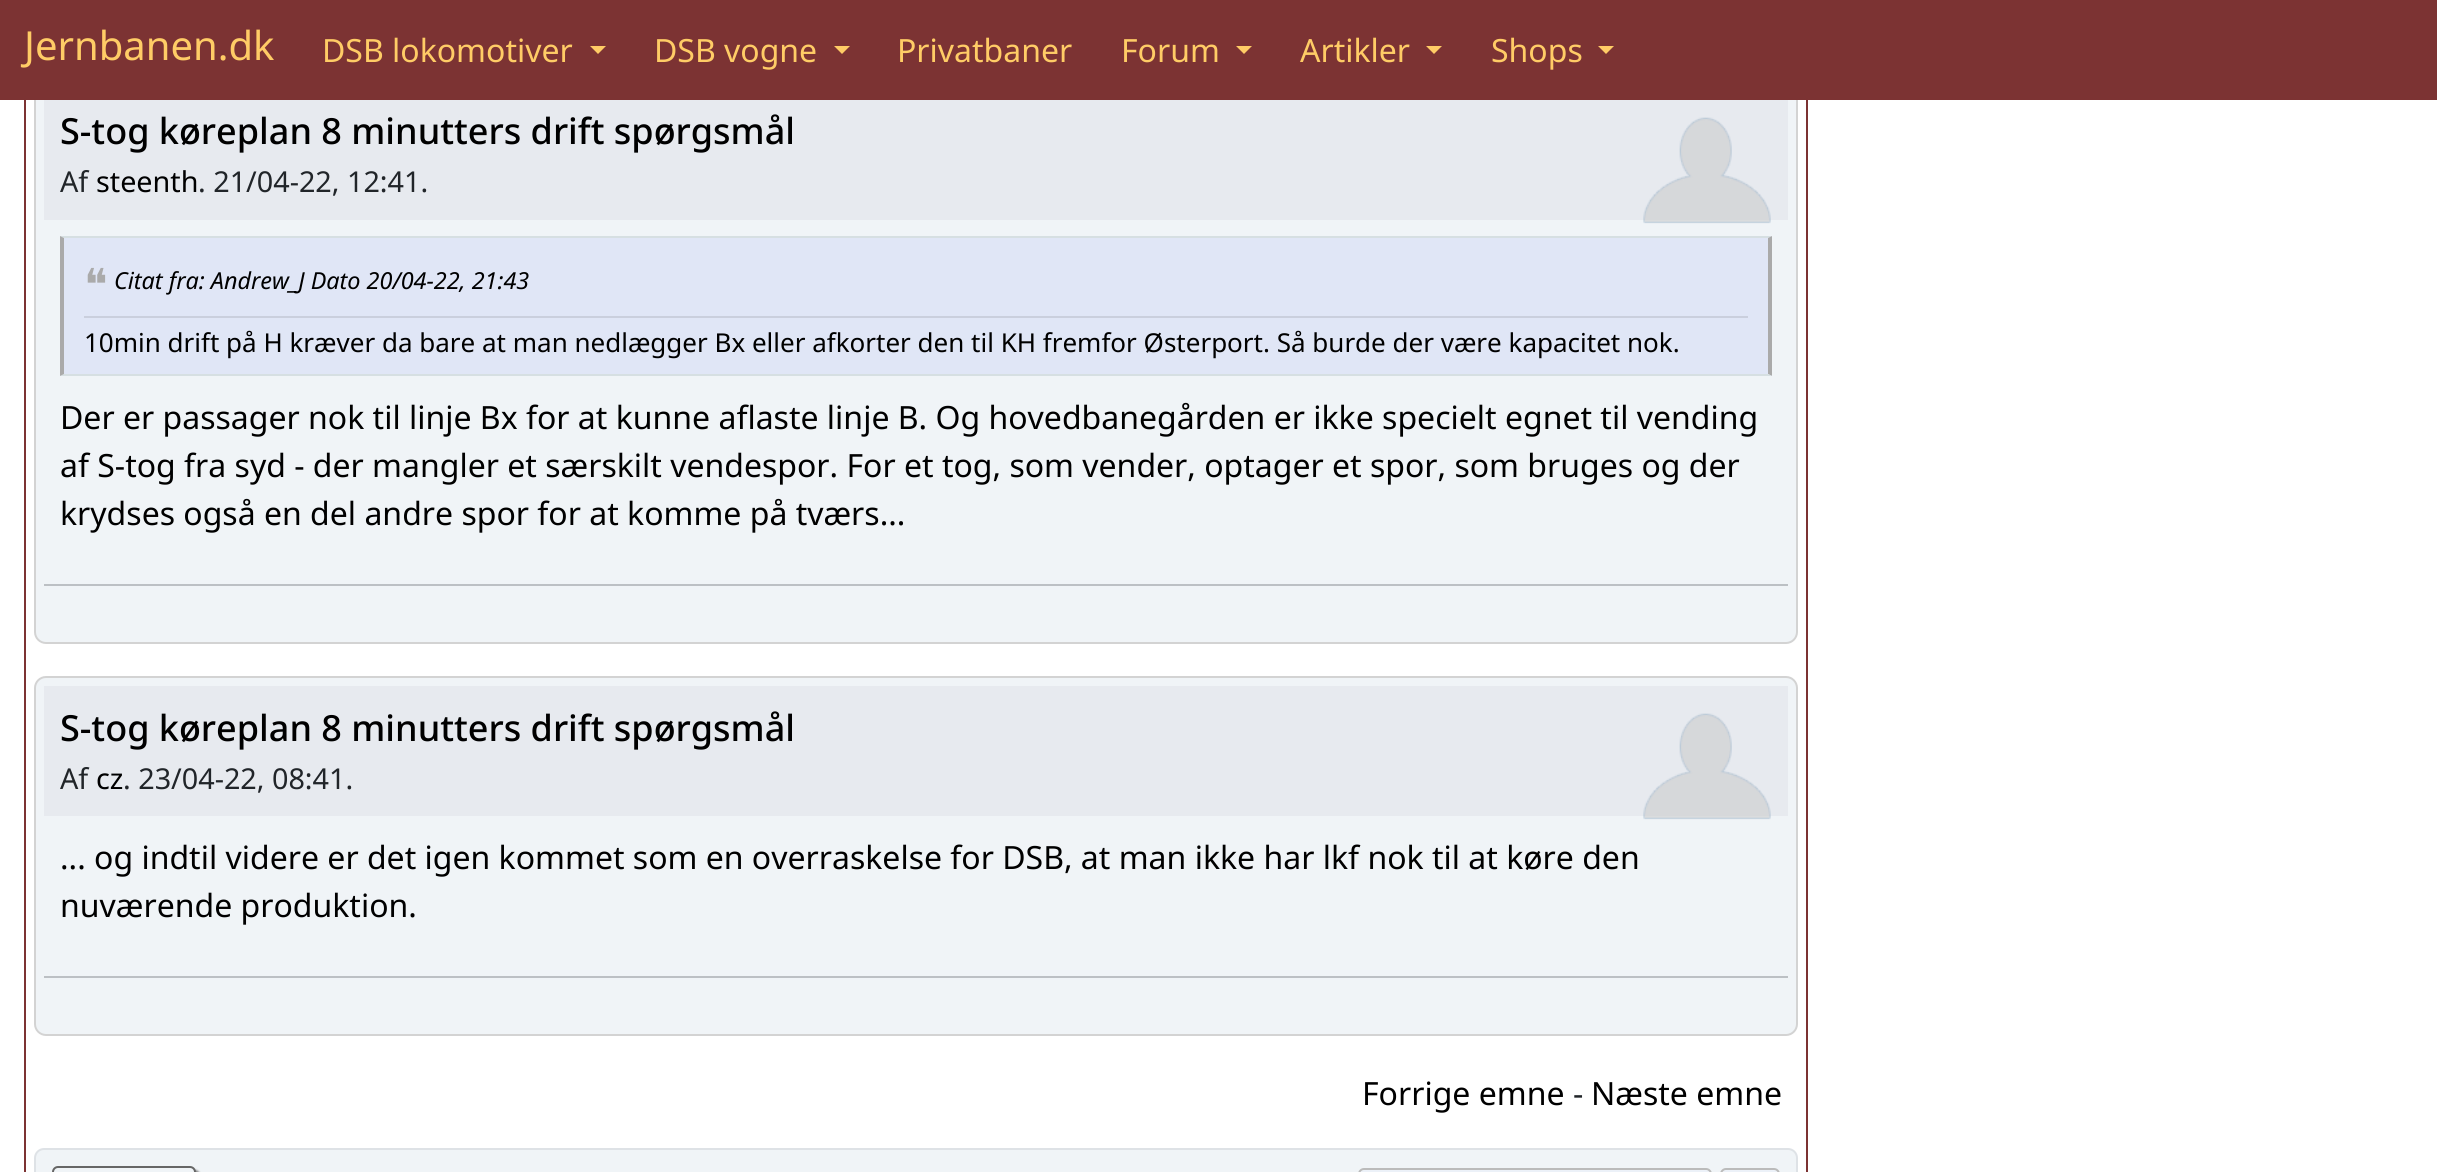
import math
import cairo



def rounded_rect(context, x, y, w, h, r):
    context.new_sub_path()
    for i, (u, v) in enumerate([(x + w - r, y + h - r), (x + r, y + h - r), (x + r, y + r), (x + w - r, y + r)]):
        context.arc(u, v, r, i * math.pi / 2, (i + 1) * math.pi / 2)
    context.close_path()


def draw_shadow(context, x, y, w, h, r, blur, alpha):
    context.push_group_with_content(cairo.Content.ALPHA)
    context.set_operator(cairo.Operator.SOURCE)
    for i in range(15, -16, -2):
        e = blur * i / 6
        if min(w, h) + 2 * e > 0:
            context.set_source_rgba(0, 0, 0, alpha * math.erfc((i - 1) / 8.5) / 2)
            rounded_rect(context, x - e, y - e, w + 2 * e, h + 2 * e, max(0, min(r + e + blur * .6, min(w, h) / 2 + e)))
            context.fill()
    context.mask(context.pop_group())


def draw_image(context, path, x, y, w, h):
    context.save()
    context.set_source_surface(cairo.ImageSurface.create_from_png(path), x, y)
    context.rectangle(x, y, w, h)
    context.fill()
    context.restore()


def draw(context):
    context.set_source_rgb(1, 1, 1)
    context.paint()
    context.rectangle(25, -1, 1782, 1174)
    context.set_source_rgb(124 / 255, 51 / 255, 51 / 255)
    context.stroke()
    context.set_source_rgb(240 / 255, 244 / 255, 247 / 255)
    rounded_rect(context, 35, 81, 1762, 562, 11)
    context.fill_preserve()
    context.set_source_rgb(211 / 255, 211 / 255, 211 / 255)
    context.stroke()
    context.set_source_rgb(124 / 255, 51 / 255, 51 / 255)
    context.rectangle(0, 0, 2437, 100)
    context.fill()
    context.set_source_rgb(1, 204 / 255, 102 / 255)
    context.new_path()
    context.move_to(590, 46)
    context.line_to(606, 46)
    context.line_to(598, 54)
    context.close_path()
    context.fill()
    context.new_path()
    context.move_to(834, 46)
    context.line_to(850, 46)
    context.line_to(842, 54)
    context.close_path()
    context.fill()
    context.new_path()
    context.move_to(1236, 46)
    context.line_to(1252, 46)
    context.line_to(1244, 54)
    context.close_path()
    context.fill()
    context.new_path()
    context.move_to(1426, 46)
    context.line_to(1442, 46)
    context.line_to(1434, 54)
    context.close_path()
    context.fill()
    context.new_path()
    context.move_to(1598, 46)
    context.line_to(1614, 46)
    context.line_to(1606, 54)
    context.close_path()
    context.fill()
    context.set_source_rgb(231 / 255, 234 / 255, 239 / 255)
    context.rectangle(44, 100, 1744, 120)
    context.fill()
    draw_image(context, "images/1.png", 1643, 117, 128, 107)
    context.set_source_rgb(224 / 255, 230 / 255, 246 / 255)
    context.rectangle(64, 238, 1704, 136)
    context.fill()
    context.set_source_rgb(214 / 255, 223 / 255, 226 / 255)
    context.new_path()
    context.move_to(60, 236)
    context.line_to(1772, 236)
    context.line_to(1768, 238)
    context.line_to(64, 238)
    context.close_path()
    context.fill()
    context.set_source_rgb(170 / 255, 170 / 255, 170 / 255)
    context.new_path()
    context.move_to(1772, 236)
    context.line_to(1772, 376)
    context.line_to(1768, 374)
    context.line_to(1768, 238)
    context.close_path()
    context.fill()
    context.set_source_rgb(214 / 255, 223 / 255, 226 / 255)
    context.new_path()
    context.move_to(1772, 376)
    context.line_to(60, 376)
    context.line_to(64, 374)
    context.line_to(1768, 374)
    context.close_path()
    context.fill()
    context.set_source_rgb(170 / 255, 170 / 255, 170 / 255)
    context.new_path()
    context.move_to(60, 376)
    context.line_to(60, 236)
    context.line_to(64, 238)
    context.line_to(64, 374)
    context.close_path()
    context.fill()
    context.set_source_rgb(202 / 255, 207 / 255, 221 / 255)
    context.rectangle(84, 316, 1664, 2)
    context.fill()
    context.set_source_rgb(188 / 255, 192 / 255, 196 / 255)
    context.rectangle(44, 584, 1744, 2)
    context.fill()
    context.set_source_rgb(240 / 255, 244 / 255, 247 / 255)
    rounded_rect(context, 35, 677, 1762, 358, 11)
    context.fill_preserve()
    context.set_source_rgb(211 / 255, 211 / 255, 211 / 255)
    context.stroke()
    context.set_source_rgb(231 / 255, 234 / 255, 239 / 255)
    context.rectangle(44, 686, 1744, 130)
    context.fill()
    draw_image(context, "images/2.png", 1643, 713, 128, 107)
    context.set_source_rgb(188 / 255, 192 / 255, 196 / 255)
    context.rectangle(44, 976, 1744, 2)
    context.fill()
    context.set_source_rgb(240 / 255, 244 / 255, 247 / 255)
    rounded_rect(context, 35, 1149, 1762, 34, 9)
    context.fill_preserve()
    context.set_source_rgb(222 / 255, 226 / 255, 230 / 255)
    context.stroke()
    context.set_source_rgb(128 / 255, 128 / 255, 128 / 255)
    draw_shadow(context, 56, 1170, 144, 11, 6, 1, 1)
    context.set_source_rgb(240 / 255, 244 / 255, 247 / 255)
    rounded_rect(context, 53, 1167, 142, 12, 5)
    context.fill_preserve()
    context.set_source_rgb(102 / 255, 102 / 255, 102 / 255)
    context.stroke()
    context.set_source_rgb(236 / 255, 241 / 255, 248 / 255)
    context.new_path()
    context.move_to(1366, 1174)
    context.line_to(1708, 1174)
    context.line_to(1710, 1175)
    context.line_to(1710, 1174)
    context.curve_to(1710, 1172, 1708, 1170, 1706, 1170)
    context.line_to(1364, 1170)
    context.curve_to(1362, 1170, 1360, 1172, 1360, 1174)
    context.line_to(1360, 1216)
    context.curve_to(1360, 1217, 1361, 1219, 1362, 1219)
    context.line_to(1362, 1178)
    context.curve_to(1362, 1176, 1364, 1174, 1366, 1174)
    context.close_path()
    context.fill()
    rounded_rect(context, 1359, 1169, 352, 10, 5)
    context.set_source_rgb(187 / 255, 187 / 255, 187 / 255)
    context.stroke()
    context.set_source_rgb(236 / 255, 241 / 255, 248 / 255)
    context.new_path()
    context.move_to(1728, 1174)
    context.line_to(1776, 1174)
    context.line_to(1778, 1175)
    context.line_to(1778, 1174)
    context.curve_to(1778, 1172, 1776, 1170, 1774, 1170)
    context.line_to(1726, 1170)
    context.curve_to(1724, 1170, 1722, 1172, 1722, 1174)
    context.line_to(1722, 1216)
    context.curve_to(1722, 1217, 1723, 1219, 1724, 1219)
    context.line_to(1724, 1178)
    context.curve_to(1724, 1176, 1726, 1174, 1728, 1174)
    context.close_path()
    context.fill()
    rounded_rect(context, 1721, 1169, 58, 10, 5)
    context.set_source_rgb(187 / 255, 187 / 255, 187 / 255)
    context.stroke()
    context.select_font_face("Noto Sans")
    context.set_font_size(40)
    context.set_source_rgb(1, 204 / 255, 102 / 255)
    context.move_to(24, 60)
    context.show_text("Jernbanen.dk")
    context.set_font_size(32)
    context.move_to(322, 62)
    context.show_text("DSB lokomotiver")
    context.move_to(654, 62)
    context.show_text("DSB vogne")
    context.move_to(897, 62)
    context.show_text("Privatbaner")
    context.move_to(1121, 62)
    context.show_text("Forum")
    context.move_to(1300, 62)
    context.show_text("Artikler")
    context.move_to(1491, 62)
    context.show_text("Shops")
    context.select_font_face("Noto Sans Medium")
    context.set_font_size(36)
    context.set_source_rgb(0, 0, 0)
    context.move_to(60, 144)
    context.show_text("S-tog køreplan 8 minutters drift spørgsmål")
    context.select_font_face("Noto Sans")
    context.set_font_size(28.75)
    context.set_source_rgb(33 / 255, 37 / 255, 41 / 255)
    context.move_to(60, 192)
    context.show_text("Af")
    context.set_source_rgb(0, 0, 0)
    context.move_to(96, 192)
    context.show_text("steenth")
    context.set_source_rgb(33 / 255, 37 / 255, 41 / 255)
    context.move_to(198, 192)
    context.show_text(". 21/04-22, 12:41.")
    context.select_font_face("DejaVu Sans")
    context.set_font_size(44)
    context.set_source_rgb(170 / 255, 170 / 255, 170 / 255)
    context.move_to(84, 300)
    context.show_text("❝")
    context.select_font_face("Noto Sans", cairo.FontSlant.ITALIC)
    context.set_font_size(23.4)
    context.set_source_rgb(0, 0, 0)
    context.move_to(114, 289)
    context.show_text("Citat fra: Andrew_J Dato 20/04-22, 21:43")
    context.select_font_face("Noto Sans")
    context.set_font_size(26)
    context.move_to(84, 352)
    context.show_text("10min drift på H kræver da bare at man nedlægger Bx eller afkorter den til KH fremfor Østerport. Så burde der være kapacitet nok.")
    context.set_font_size(32)
    context.move_to(60, 429)
    context.show_text("Der er passager nok til linje Bx for at kunne aflaste linje B. Og hovedbanegården er ikke specielt egnet til vending")
    context.move_to(60, 477)
    context.show_text("af S-tog fra syd - der mangler et særskilt vendespor. For et tog, som vender, optager et spor, som bruges og der")
    context.move_to(60, 525)
    context.show_text("krydses også en del andre spor for at komme på tværs...")
    context.select_font_face("Noto Sans Medium")
    context.set_font_size(36)
    context.move_to(60, 741)
    context.show_text("S-tog køreplan 8 minutters drift spørgsmål")
    context.select_font_face("Noto Sans")
    context.set_font_size(28.75)
    context.set_source_rgb(33 / 255, 37 / 255, 41 / 255)
    context.move_to(60, 789)
    context.show_text("Af")
    context.set_source_rgb(0, 0, 0)
    context.move_to(96, 789)
    context.show_text("cz")
    context.set_source_rgb(33 / 255, 37 / 255, 41 / 255)
    context.move_to(123, 789)
    context.show_text(". 23/04-22, 08:41.")
    context.set_font_size(32)
    context.set_source_rgb(0, 0, 0)
    context.move_to(60, 869)
    context.show_text("... og indtil videre er det igen kommet som en overraskelse for DSB, at man ikke har lkf nok til at køre den")
    context.move_to(60, 917)
    context.show_text("nuværende produktion.")
    context.move_to(1362, 1105)
    context.show_text("Forrige emne")
    context.set_source_rgb(33 / 255, 37 / 255, 41 / 255)
    context.move_to(1573, 1105)
    context.show_text("-")
    context.set_source_rgb(0, 0, 0)
    context.move_to(1591, 1105)
    context.show_text("Næste emne")


surface = cairo.ImageSurface(cairo.Format.RGB24, 2437, 1172)
context = cairo.Context(surface)
options = cairo.FontOptions()
options.set_hint_metrics(cairo.HintMetrics.OFF)
options.set_hint_style(cairo.HintStyle.NONE)
context.set_font_options(options)
context.set_miter_limit(4)
draw(context)
surface.write_to_png("out.png")
